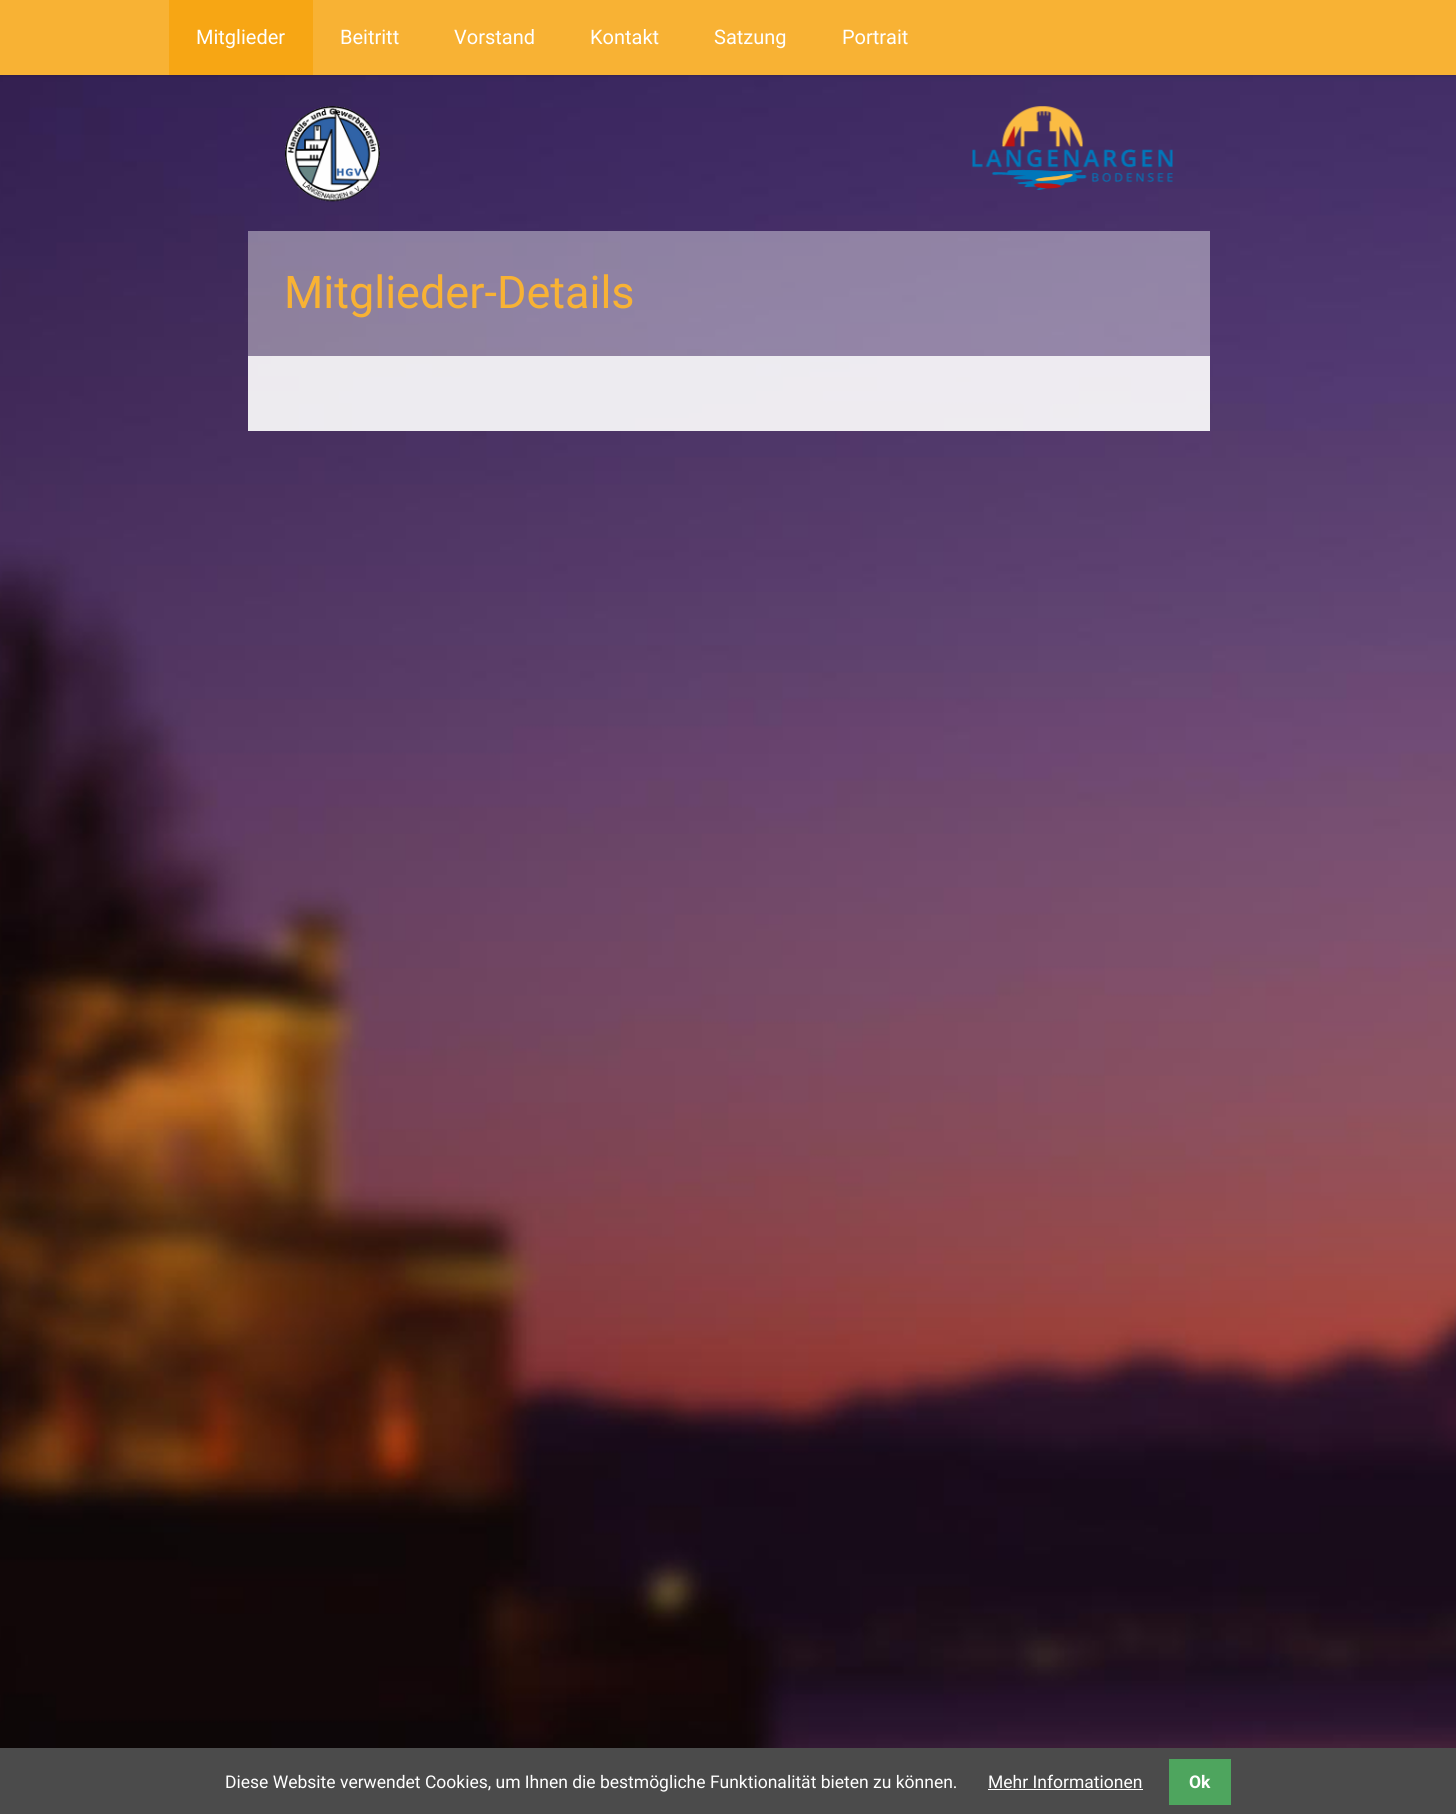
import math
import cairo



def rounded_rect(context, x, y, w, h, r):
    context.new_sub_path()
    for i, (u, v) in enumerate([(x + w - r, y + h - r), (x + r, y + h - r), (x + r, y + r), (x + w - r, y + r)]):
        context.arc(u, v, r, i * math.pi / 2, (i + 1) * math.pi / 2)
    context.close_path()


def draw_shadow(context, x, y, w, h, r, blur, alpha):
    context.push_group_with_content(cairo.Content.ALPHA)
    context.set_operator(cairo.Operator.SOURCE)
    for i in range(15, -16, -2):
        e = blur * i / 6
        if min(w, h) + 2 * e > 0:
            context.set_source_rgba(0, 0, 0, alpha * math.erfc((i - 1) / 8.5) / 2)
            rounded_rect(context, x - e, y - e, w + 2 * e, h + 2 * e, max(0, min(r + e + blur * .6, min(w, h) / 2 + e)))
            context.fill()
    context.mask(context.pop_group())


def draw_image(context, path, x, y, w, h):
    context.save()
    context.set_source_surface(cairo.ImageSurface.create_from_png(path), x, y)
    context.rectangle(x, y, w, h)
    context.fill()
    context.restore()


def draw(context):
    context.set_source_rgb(1, 1, 1)
    context.paint()
    draw_image(context, "images/1.png", 0, 75, 1456, 1673)
    context.set_source_rgb(0, 0, 0)
    draw_shadow(context, 0, 0, 1456, 75, 0, 2, 0.25)
    context.set_source_rgb(248 / 255, 178 / 255, 52 / 255)
    context.rectangle(0, 0, 1456, 75)
    context.fill()
    context.set_source_rgb(247 / 255, 166 / 255, 20 / 255)
    context.rectangle(169, 0, 144, 75)
    context.fill()
    draw_image(context, "images/2.png", 285, 106, 95, 96)
    draw_image(context, "images/3.png", 972, 106, 201, 84)
    context.set_source_rgba(1, 1, 1, 0.4)
    context.rectangle(248, 231, 962, 125)
    context.fill()
    context.set_source_rgba(1, 1, 1, 0.9)
    context.rectangle(248, 356, 962, 75)
    context.fill()
    context.set_source_rgb(75 / 255, 75 / 255, 75 / 255)
    context.rectangle(0, 1748, 1456, 66)
    context.fill()
    context.set_source_rgb(1, 1, 1)
    context.rectangle(988, 1789, 155, 1)
    context.fill()
    context.set_source_rgb(78 / 255, 165 / 255, 94 / 255)
    context.rectangle(1169, 1759, 62, 46)
    context.fill()
    context.select_font_face("Roboto")
    context.set_font_size(20)
    context.set_source_rgb(1, 1, 1)
    context.move_to(196, 44)
    context.show_text("Mitglieder")
    context.move_to(340, 44)
    context.show_text("Beitritt")
    context.move_to(454, 44)
    context.show_text("Vorstand")
    context.move_to(590, 44)
    context.show_text("Kontakt")
    context.move_to(714, 44)
    context.show_text("Satzung")
    context.move_to(842, 44)
    context.show_text("Portrait")
    context.set_font_size(45)
    context.set_source_rgb(248 / 255, 178 / 255, 52 / 255)
    context.move_to(284, 308)
    context.show_text("Mitglieder-Details")
    context.set_font_size(17.5)
    context.set_source_rgb(1, 1, 1)
    context.move_to(225, 1788)
    context.show_text("Diese Website verwendet Cookies, um Ihnen die bestmögliche Funktionalität bieten zu können.")
    context.move_to(988, 1788)
    context.show_text("Mehr Informationen")
    context.select_font_face("Roboto", cairo.FontSlant.NORMAL, cairo.FontWeight.BOLD)
    context.move_to(1189, 1788)
    context.show_text("Ok")


surface = cairo.ImageSurface(cairo.Format.RGB24, 1456, 1814)
context = cairo.Context(surface)
options = cairo.FontOptions()
options.set_hint_metrics(cairo.HintMetrics.OFF)
options.set_hint_style(cairo.HintStyle.NONE)
context.set_font_options(options)
context.set_miter_limit(4)
draw(context)
surface.write_to_png("out.png")
